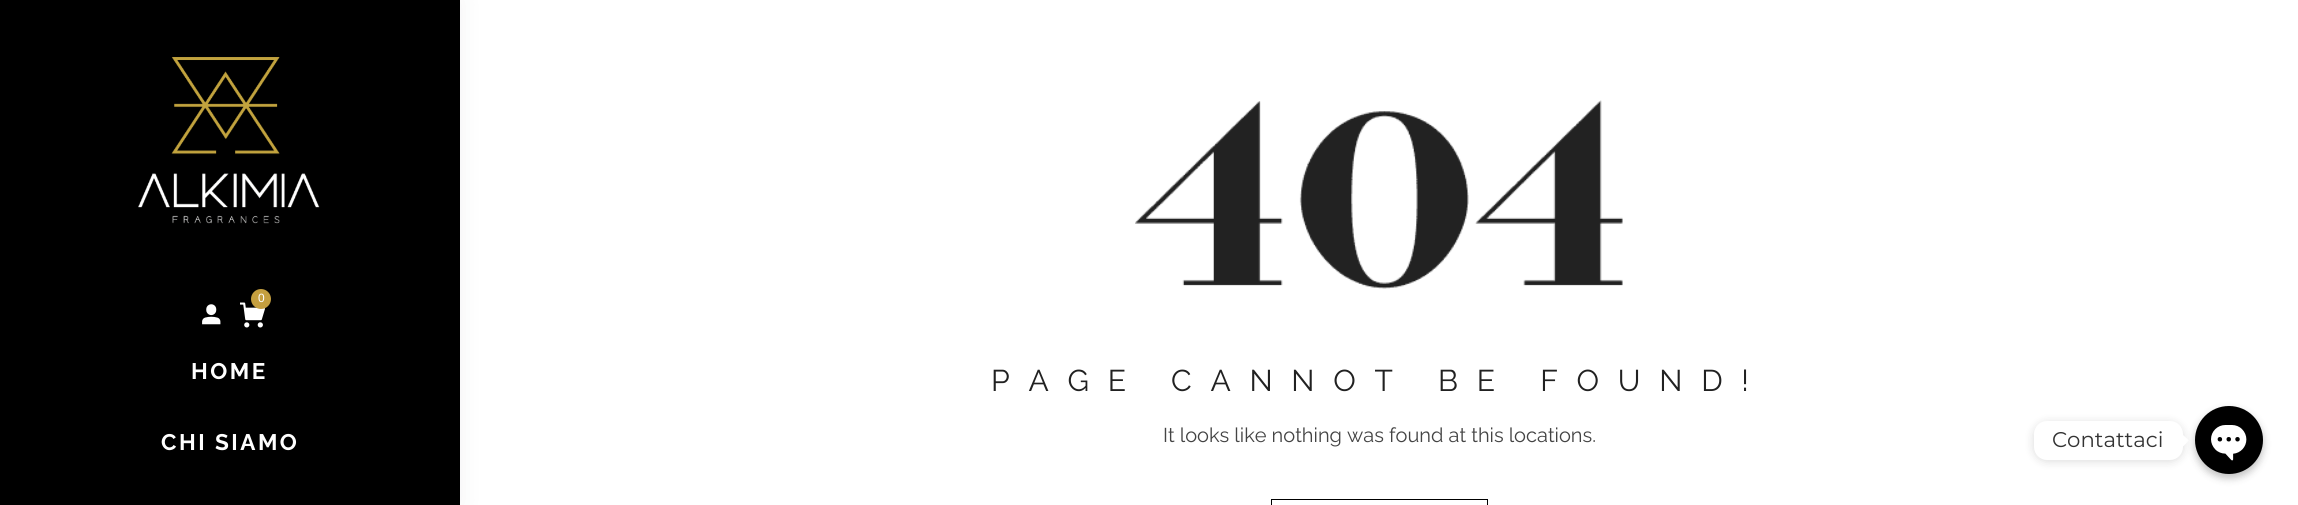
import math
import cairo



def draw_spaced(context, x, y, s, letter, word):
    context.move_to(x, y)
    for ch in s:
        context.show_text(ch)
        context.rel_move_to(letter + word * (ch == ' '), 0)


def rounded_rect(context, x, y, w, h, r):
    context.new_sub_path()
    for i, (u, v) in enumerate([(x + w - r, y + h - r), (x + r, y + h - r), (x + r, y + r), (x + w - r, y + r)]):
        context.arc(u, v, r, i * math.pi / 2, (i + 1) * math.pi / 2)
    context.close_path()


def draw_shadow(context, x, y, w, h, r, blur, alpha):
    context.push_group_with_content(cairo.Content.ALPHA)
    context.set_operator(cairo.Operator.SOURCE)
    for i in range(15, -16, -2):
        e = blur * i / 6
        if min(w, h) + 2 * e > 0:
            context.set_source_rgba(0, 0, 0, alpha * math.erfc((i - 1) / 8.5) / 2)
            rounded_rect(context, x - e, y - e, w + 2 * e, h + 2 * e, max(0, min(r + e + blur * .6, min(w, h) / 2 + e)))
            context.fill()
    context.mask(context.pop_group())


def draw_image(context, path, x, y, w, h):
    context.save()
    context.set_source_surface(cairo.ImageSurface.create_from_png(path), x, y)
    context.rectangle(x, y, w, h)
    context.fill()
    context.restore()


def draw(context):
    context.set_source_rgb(1, 1, 1)
    context.paint()
    context.set_source_rgb(41 / 255, 44 / 255, 58 / 255)
    draw_shadow(context, 0, 0, 460, 505, 0, 12.5, 0.06)
    context.set_source_rgb(0, 0, 0)
    context.rectangle(0, 0, 460, 505)
    context.fill()
    draw_image(context, "images/1.png", 138, 57, 182, 167)
    draw_image(context, "images/2.png", 240, 302, 25, 26)
    context.set_source_rgb(197 / 255, 159 / 255, 63 / 255)
    context.arc(261, 299, 10, 0, 2 * math.pi)
    context.fill()
    draw_image(context, "images/3.png", 202, 304, 19, 21)
    draw_image(context, "images/4.png", 1135, 100, 488, 189)
    context.rectangle(1271.5, 499.5, 216, 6)
    context.set_source_rgb(0, 0, 0)
    context.set_line_width(1)
    context.stroke()
    context.set_source_rgb(0, 0, 0)
    draw_shadow(context, 2034, 423, 149, 38, 13, 5, 0.15)
    context.set_source_rgb(1, 1, 1)
    rounded_rect(context, 2034, 421, 149, 39, 13)
    context.fill()
    context.new_path()
    context.move_to(2182.5, 447)
    context.line_to(2182.5, 434.5)
    context.line_to(2189, 440.5)
    context.close_path()
    context.fill()
    context.set_source_rgb(0, 0, 0)
    draw_shadow(context, 2195, 410, 68, 68, 34, 4, 0.25)
    draw_image(context, "images/5.png", 2195, 406, 68, 68)
    context.select_font_face("Liberation Sans")
    context.set_font_size(12)
    context.set_source_rgb(1, 1, 1)
    context.move_to(258, 302)
    context.show_text("0")
    context.select_font_face("Raleway", cairo.FontSlant.NORMAL, cairo.FontWeight.BOLD)
    context.set_font_size(22.5)
    draw_spaced(context, 191, 379, "HOME", 2.5, 0)
    draw_spaced(context, 161, 450, "CHI SIAMO", 2.5, 0)
    context.select_font_face("Raleway")
    context.set_font_size(30)
    context.set_source_rgb(33 / 255, 33 / 255, 33 / 255)
    draw_spaced(context, 991, 391, "PAGE CANNOT BE FOUND!", 18.75, 0)
    context.set_font_size(20)
    context.set_source_rgb(68 / 255, 68 / 255, 68 / 255)
    context.move_to(1163, 442)
    context.show_text("It looks like nothing was found at this locations.")
    context.select_font_face("Montserrat Thin")
    context.set_font_size(21.25)
    context.set_source_rgb(51 / 255, 51 / 255, 51 / 255)
    context.move_to(2052, 447)
    context.show_text("Contattaci")


surface = cairo.ImageSurface(cairo.Format.RGB24, 2298, 505)
context = cairo.Context(surface)
options = cairo.FontOptions()
options.set_hint_metrics(cairo.HintMetrics.OFF)
options.set_hint_style(cairo.HintStyle.NONE)
context.set_font_options(options)
context.set_miter_limit(4)
draw(context)
surface.write_to_png("out.png")
